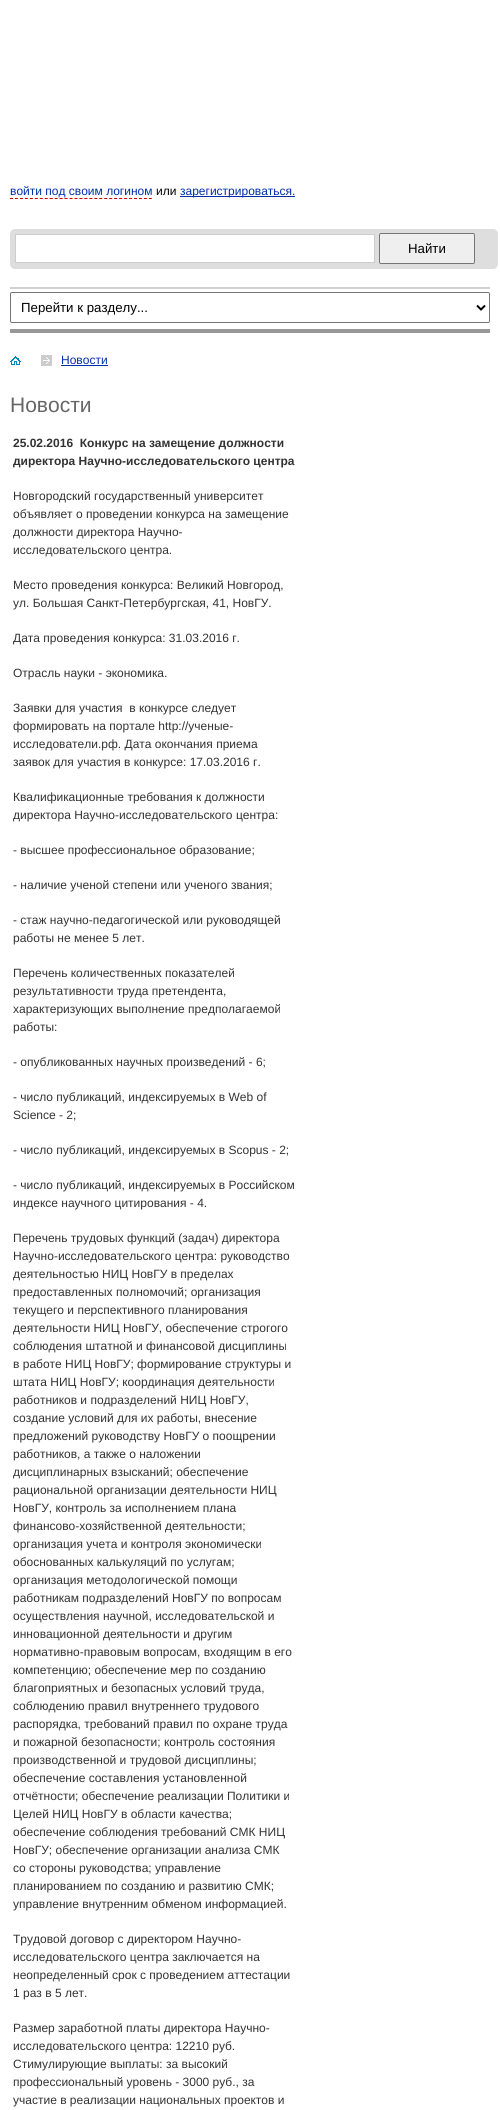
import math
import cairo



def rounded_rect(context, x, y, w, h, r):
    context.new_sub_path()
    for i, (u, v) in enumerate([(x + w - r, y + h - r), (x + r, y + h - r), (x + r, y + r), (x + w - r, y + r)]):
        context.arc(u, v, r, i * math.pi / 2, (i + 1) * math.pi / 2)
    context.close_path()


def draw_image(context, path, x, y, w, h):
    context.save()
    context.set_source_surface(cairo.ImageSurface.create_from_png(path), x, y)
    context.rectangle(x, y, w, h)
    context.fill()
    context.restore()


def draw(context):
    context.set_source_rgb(1, 1, 1)
    context.paint()
    context.set_source_rgb(209 / 255, 209 / 255, 209 / 255)
    context.rectangle(10, 287, 480, 2)
    context.fill()
    context.new_path()
    context.move_to(10, 198.5)
    context.line_to(152, 198.5)
    context.set_source_rgb(204 / 255, 0, 0)
    context.set_line_width(1)
    context.set_dash([3, 1.96])
    context.stroke()
    context.set_source_rgb(0, 47 / 255, 167 / 255)
    context.rectangle(180, 196, 115, 1)
    context.fill()
    context.set_source_rgb(222 / 255, 222 / 255, 222 / 255)
    rounded_rect(context, 10, 229, 488, 40, 5)
    context.fill()
    context.set_source_rgb(1, 1, 1)
    context.rectangle(15.5, 234.5, 359, 28)
    context.fill_preserve()
    context.set_source_rgb(204 / 255, 204 / 255, 204 / 255)
    context.set_dash([])
    context.stroke()
    context.set_source_rgb(239 / 255, 239 / 255, 239 / 255)
    rounded_rect(context, 379.5, 233.5, 95, 30, 1.5)
    context.fill_preserve()
    context.set_source_rgb(118 / 255, 118 / 255, 118 / 255)
    context.stroke()
    context.set_source_rgb(152 / 255, 152 / 255, 152 / 255)
    context.rectangle(10, 329, 480, 4)
    context.fill()
    rounded_rect(context, 10.5, 292.5, 479, 30, 1.5)
    context.set_source_rgb(118 / 255, 118 / 255, 118 / 255)
    context.stroke()
    context.new_path()
    context.move_to(477, 305.5)
    context.line_to(481, 309.5)
    context.line_to(485, 305.5)
    context.set_source_rgb(0, 0, 0)
    context.set_line_width(2)
    context.stroke()
    draw_image(context, "images/1.png", 10, 356, 11, 9)
    draw_image(context, "images/2.png", 41, 355, 11, 11)
    context.set_source_rgb(0, 47 / 255, 167 / 255)
    context.rectangle(61, 365, 47, 1)
    context.fill()
    context.select_font_face("Liberation Sans")
    context.set_font_size(12)
    context.move_to(10, 195)
    context.show_text("войти под своим логином")
    context.set_source_rgb(0, 0, 0)
    context.move_to(156, 195)
    context.show_text("или")
    context.set_source_rgb(0, 47 / 255, 167 / 255)
    context.move_to(180, 195)
    context.show_text("зарегистрироваться.")
    context.set_font_size(13.25)
    context.set_source_rgb(0, 0, 0)
    context.move_to(408, 253)
    context.show_text("Найти")
    context.move_to(21, 312)
    context.show_text("Перейти к разделу...")
    context.set_font_size(12)
    context.set_source_rgb(0, 47 / 255, 167 / 255)
    context.move_to(61, 364)
    context.show_text("Новости")
    context.set_font_size(21)
    context.set_source_rgb(102 / 255, 102 / 255, 102 / 255)
    context.move_to(10, 412)
    context.show_text("Новости")
    context.select_font_face("Liberation Sans", cairo.FontSlant.NORMAL, cairo.FontWeight.BOLD)
    context.set_font_size(12)
    context.set_source_rgb(51 / 255, 51 / 255, 51 / 255)
    context.move_to(13, 447)
    context.show_text("25.02.2016  Конкурс на замещение должности")
    context.move_to(13, 465)
    context.show_text("директора Научно-исследовательского центра")
    context.select_font_face("Liberation Sans")
    context.move_to(13, 500)
    context.show_text("Новгородский государственный университет")
    context.move_to(13, 518)
    context.show_text("объявляет о проведении конкурса на замещение")
    context.move_to(13, 536)
    context.show_text("должности директора Научно-")
    context.move_to(13, 554)
    context.show_text("исследовательского центра.")
    context.move_to(13, 589)
    context.show_text("Место проведения конкурса: Великий Новгород,")
    context.move_to(13, 607)
    context.show_text("ул. Большая Санкт-Петербургская, 41, НовГУ.")
    context.move_to(13, 642)
    context.show_text("Дата проведения конкурса: 31.03.2016 г.")
    context.move_to(13, 677)
    context.show_text("Отрасль науки - экономика.")
    context.move_to(13, 712)
    context.show_text("Заявки для участия  в конкурсе следует")
    context.move_to(13, 730)
    context.show_text("формировать на портале http://ученые-")
    context.move_to(13, 748)
    context.show_text("исследователи.рф. Дата окончания приема")
    context.move_to(13, 766)
    context.show_text("заявок для участия в конкурсе: 17.03.2016 г.")
    context.move_to(13, 801)
    context.show_text("Квалификационные требования к должности")
    context.move_to(13, 819)
    context.show_text("директора Научно-исследовательского центра:")
    context.move_to(13, 854)
    context.show_text("- высшее профессиональное образование;")
    context.move_to(13, 889)
    context.show_text("- наличие ученой степени или ученого звания;")
    context.move_to(13, 924)
    context.show_text("- стаж научно-педагогической или руководящей")
    context.move_to(13, 942)
    context.show_text("работы не менее 5 лет.")
    context.move_to(13, 977)
    context.show_text("Перечень количественных показателей")
    context.move_to(13, 995)
    context.show_text("результативности труда претендента,")
    context.move_to(13, 1013)
    context.show_text("характеризующих выполнение предполагаемой")
    context.move_to(13, 1031)
    context.show_text("работы:")
    context.move_to(13, 1066)
    context.show_text("- опубликованных научных произведений - 6;")
    context.move_to(13, 1101)
    context.show_text("- число публикаций, индексируемых в Web of")
    context.move_to(13, 1119)
    context.show_text("Science - 2;")
    context.move_to(13, 1154)
    context.show_text("- число публикаций, индексируемых в Scopus - 2;")
    context.move_to(13, 1189)
    context.show_text("- число публикаций, индексируемых в Российском")
    context.move_to(13, 1207)
    context.show_text("индексе научного цитирования - 4.")
    context.move_to(13, 1242)
    context.show_text("Перечень трудовых функций (задач) директора")
    context.move_to(13, 1260)
    context.show_text("Научно-исследовательского центра: руководство")
    context.move_to(13, 1278)
    context.show_text("деятельностью НИЦ НовГУ в пределах")
    context.move_to(13, 1296)
    context.show_text("предоставленных полномочий; организация")
    context.move_to(13, 1314)
    context.show_text("текущего и перспективного планирования")
    context.move_to(13, 1332)
    context.show_text("деятельности НИЦ НовГУ, обеспечение строгого")
    context.move_to(13, 1350)
    context.show_text("соблюдения штатной и финансовой дисциплины")
    context.move_to(13, 1368)
    context.show_text("в работе НИЦ НовГУ; формирование структуры и")
    context.move_to(13, 1386)
    context.show_text("штата НИЦ НовГУ; координация деятельности")
    context.move_to(13, 1404)
    context.show_text("работников и подразделений НИЦ НовГУ,")
    context.move_to(13, 1422)
    context.show_text("создание условий для их работы, внесение")
    context.move_to(13, 1440)
    context.show_text("предложений руководству НовГУ о поощрении")
    context.move_to(13, 1458)
    context.show_text("работников, а также о наложении")
    context.move_to(13, 1476)
    context.show_text("дисциплинарных взысканий; обеспечение")
    context.move_to(13, 1494)
    context.show_text("рациональной организации деятельности НИЦ")
    context.move_to(13, 1512)
    context.show_text("НовГУ, контроль за исполнением плана")
    context.move_to(13, 1530)
    context.show_text("финансово-хозяйственной деятельности;")
    context.move_to(13, 1548)
    context.show_text("организация учета и контроля экономически")
    context.move_to(13, 1566)
    context.show_text("обоснованных калькуляций по услугам;")
    context.move_to(13, 1584)
    context.show_text("организация методологической помощи")
    context.move_to(13, 1602)
    context.show_text("работникам подразделений НовГУ по вопросам")
    context.move_to(13, 1620)
    context.show_text("осуществления научной, исследовательской и")
    context.move_to(13, 1638)
    context.show_text("инновационной деятельности и другим")
    context.move_to(13, 1656)
    context.show_text("нормативно-правовым вопросам, входящим в его")
    context.move_to(13, 1674)
    context.show_text("компетенцию; обеспечение мер по созданию")
    context.move_to(13, 1692)
    context.show_text("благоприятных и безопасных условий труда,")
    context.move_to(13, 1710)
    context.show_text("соблюдению правил внутреннего трудового")
    context.move_to(13, 1728)
    context.show_text("распорядка, требований правил по охране труда")
    context.move_to(13, 1746)
    context.show_text("и пожарной безопасности; контроль состояния")
    context.move_to(13, 1764)
    context.show_text("производственной и трудовой дисциплины;")
    context.move_to(13, 1782)
    context.show_text("обеспечение составления установленной")
    context.move_to(13, 1800)
    context.show_text("отчётности; обеспечение реализации Политики и")
    context.move_to(13, 1818)
    context.show_text("Целей НИЦ НовГУ в области качества;")
    context.move_to(13, 1836)
    context.show_text("обеспечение соблюдения требований СМК НИЦ")
    context.move_to(13, 1854)
    context.show_text("НовГУ; обеспечение организации анализа СМК")
    context.move_to(13, 1872)
    context.show_text("со стороны руководства; управление")
    context.move_to(13, 1890)
    context.show_text("планированием по созданию и развитию СМК;")
    context.move_to(13, 1908)
    context.show_text("управление внутренним обменом информацией.")
    context.move_to(13, 1943)
    context.show_text("Трудовой договор с директором Научно-")
    context.move_to(13, 1961)
    context.show_text("исследовательского центра заключается на")
    context.move_to(13, 1979)
    context.show_text("неопределенный срок с проведением аттестации")
    context.move_to(13, 1997)
    context.show_text("1 раз в 5 лет.")
    context.move_to(13, 2032)
    context.show_text("Размер заработной платы директора Научно-")
    context.move_to(13, 2050)
    context.show_text("исследовательского центра: 12210 руб.")
    context.move_to(13, 2068)
    context.show_text("Стимулирующие выплаты: за высокий")
    context.move_to(13, 2086)
    context.show_text("профессиональный уровень - 3000 руб., за")
    context.move_to(13, 2104)
    context.show_text("участие в реализации национальных проектов и")


surface = cairo.ImageSurface(cairo.Format.RGB24, 500, 2110)
context = cairo.Context(surface)
options = cairo.FontOptions()
options.set_hint_metrics(cairo.HintMetrics.OFF)
options.set_hint_style(cairo.HintStyle.NONE)
context.set_font_options(options)
context.set_miter_limit(4)
draw(context)
surface.write_to_png("out.png")
